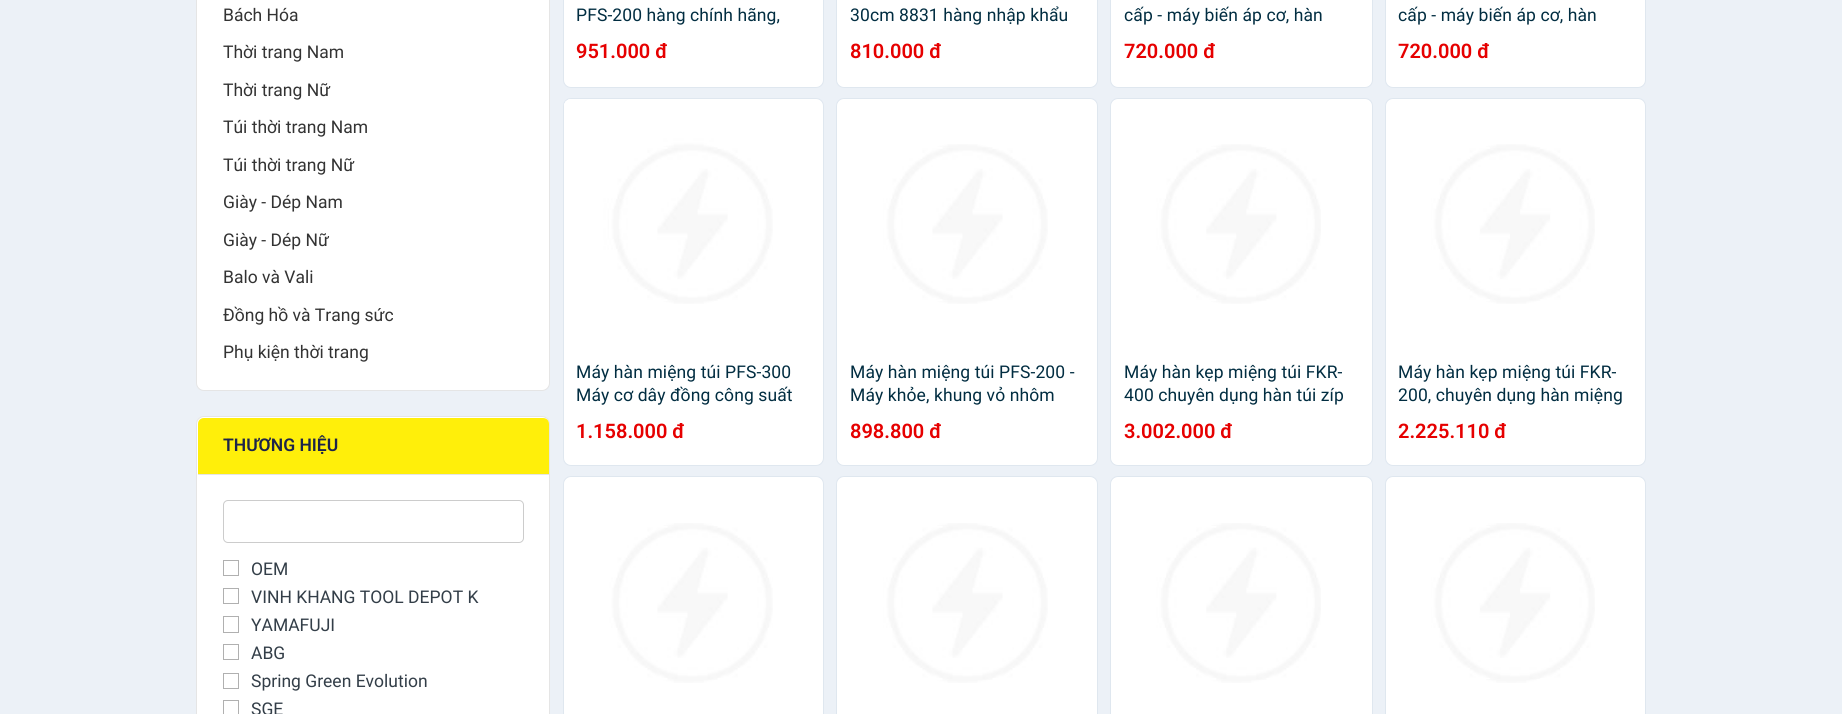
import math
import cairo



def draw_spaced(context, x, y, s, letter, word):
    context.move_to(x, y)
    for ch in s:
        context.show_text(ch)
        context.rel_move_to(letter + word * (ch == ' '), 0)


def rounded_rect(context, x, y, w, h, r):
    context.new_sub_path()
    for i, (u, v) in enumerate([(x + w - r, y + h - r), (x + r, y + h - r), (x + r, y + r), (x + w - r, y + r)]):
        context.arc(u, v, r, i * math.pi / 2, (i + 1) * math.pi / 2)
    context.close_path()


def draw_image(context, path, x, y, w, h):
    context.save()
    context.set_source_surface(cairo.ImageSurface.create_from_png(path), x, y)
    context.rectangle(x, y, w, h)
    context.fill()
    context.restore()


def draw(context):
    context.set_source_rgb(236 / 255, 241 / 255, 247 / 255)
    context.paint()
    context.set_source_rgb(1, 1, 1)
    rounded_rect(context, 196.5, -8.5, 353, 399, 7.5)
    context.fill_preserve()
    context.set_source_rgb(229 / 255, 229 / 255, 229 / 255)
    context.set_line_width(1)
    context.stroke()
    context.set_source_rgb(1, 1, 1)
    rounded_rect(context, 196.5, 416.5, 353, 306, 7.5)
    context.fill_preserve()
    context.set_source_rgb(229 / 255, 229 / 255, 229 / 255)
    context.stroke()
    context.set_source_rgb(1, 239 / 255, 10 / 255)
    context.new_path()
    context.move_to(204, 418)
    context.line_to(543, 418)
    context.curve_to(546.5, 418, 549, 420.5, 549, 424)
    context.line_to(549, 474)
    context.line_to(198, 474)
    context.line_to(198, 424)
    context.curve_to(198, 420.5, 200.5, 418, 204, 418)
    context.close_path()
    context.fill()
    context.set_source_rgb(229 / 255, 229 / 255, 229 / 255)
    context.rectangle(198, 474, 351, 1)
    context.fill()
    rounded_rect(context, 223.5, 500.5, 300, 42, 4.5)
    context.set_source_rgb(204 / 255, 204 / 255, 204 / 255)
    context.stroke()
    context.rectangle(223.5, 560.5, 15, 15)
    context.set_source_rgb(176 / 255, 176 / 255, 176 / 255)
    context.stroke()
    context.rectangle(223.5, 588.5, 15, 15)
    context.stroke()
    context.rectangle(223.5, 616.5, 15, 16)
    context.stroke()
    context.rectangle(223.5, 644.5, 15, 15)
    context.stroke()
    context.rectangle(223.5, 673.5, 15, 15)
    context.stroke()
    context.rectangle(223.5, 700.5, 15, 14)
    context.stroke()
    context.set_source_rgb(1, 1, 1)
    rounded_rect(context, 563.5, -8.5, 260, 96, 7.5)
    context.fill_preserve()
    context.set_source_rgb(223 / 255, 231 / 255, 239 / 255)
    context.stroke()
    context.set_source_rgb(1, 1, 1)
    rounded_rect(context, 836.5, -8.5, 261, 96, 7.5)
    context.fill_preserve()
    context.set_source_rgb(223 / 255, 231 / 255, 239 / 255)
    context.stroke()
    context.set_source_rgb(1, 1, 1)
    rounded_rect(context, 1110.5, -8.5, 262, 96, 7.5)
    context.fill_preserve()
    context.set_source_rgb(223 / 255, 231 / 255, 239 / 255)
    context.stroke()
    context.set_source_rgb(1, 1, 1)
    rounded_rect(context, 1385.5, -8.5, 260, 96, 7.5)
    context.fill_preserve()
    context.set_source_rgb(223 / 255, 231 / 255, 239 / 255)
    context.stroke()
    context.set_source_rgb(1, 1, 1)
    rounded_rect(context, 563.5, 98.5, 260, 367, 7.5)
    context.fill_preserve()
    context.set_source_rgb(223 / 255, 231 / 255, 239 / 255)
    context.stroke()
    draw_image(context, "images/1.png", 564, 99, 205, 205)
    draw_image(context, "images/2.png", 609, 147, 164, 154)
    context.set_source_rgb(1, 1, 1)
    rounded_rect(context, 836.5, 98.5, 261, 367, 7.5)
    context.fill_preserve()
    context.set_source_rgb(223 / 255, 231 / 255, 239 / 255)
    context.stroke()
    draw_image(context, "images/3.png", 883, 144, 160, 160)
    draw_image(context, "images/4.png", 883, 147, 165, 154)
    context.set_source_rgb(1, 1, 1)
    rounded_rect(context, 1110.5, 98.5, 262, 367, 7.5)
    context.fill_preserve()
    context.set_source_rgb(223 / 255, 231 / 255, 239 / 255)
    context.stroke()
    draw_image(context, "images/5.png", 1156, 144, 160, 160)
    draw_image(context, "images/6.png", 1156, 147, 165, 154)
    context.set_source_rgb(1, 1, 1)
    rounded_rect(context, 1385.5, 98.5, 260, 367, 7.5)
    context.fill_preserve()
    context.set_source_rgb(223 / 255, 231 / 255, 239 / 255)
    context.stroke()
    draw_image(context, "images/7.png", 1431, 144, 160, 160)
    draw_image(context, "images/8.png", 1431, 147, 164, 154)
    context.set_source_rgb(1, 1, 1)
    rounded_rect(context, 563.5, 476.5, 260, 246, 7.5)
    context.fill_preserve()
    context.set_source_rgb(223 / 255, 231 / 255, 239 / 255)
    context.stroke()
    draw_image(context, "images/9.png", 609, 523, 160, 160)
    draw_image(context, "images/10.png", 609, 526, 164, 154)
    context.set_source_rgb(1, 1, 1)
    rounded_rect(context, 836.5, 476.5, 261, 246, 7.5)
    context.fill_preserve()
    context.set_source_rgb(223 / 255, 231 / 255, 239 / 255)
    context.stroke()
    draw_image(context, "images/11.png", 883, 523, 160, 160)
    draw_image(context, "images/12.png", 883, 526, 165, 154)
    context.set_source_rgb(1, 1, 1)
    rounded_rect(context, 1110.5, 476.5, 262, 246, 7.5)
    context.fill_preserve()
    context.set_source_rgb(223 / 255, 231 / 255, 239 / 255)
    context.stroke()
    draw_image(context, "images/13.png", 1156, 523, 160, 160)
    draw_image(context, "images/14.png", 1156, 526, 165, 154)
    context.set_source_rgb(1, 1, 1)
    rounded_rect(context, 1385.5, 476.5, 260, 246, 7.5)
    context.fill_preserve()
    context.set_source_rgb(223 / 255, 231 / 255, 239 / 255)
    context.stroke()
    draw_image(context, "images/15.png", 1431, 523, 160, 160)
    draw_image(context, "images/16.png", 1431, 526, 164, 153)
    context.select_font_face("Roboto")
    context.set_font_size(17.5)
    context.set_source_rgb(51 / 255, 51 / 255, 51 / 255)
    context.move_to(223, 21)
    context.show_text("Bách Hóa")
    context.move_to(223, 58)
    context.show_text("Thời trang Nam")
    context.move_to(223, 96)
    context.show_text("Thời trang Nữ")
    context.move_to(223, 133)
    context.show_text("Túi thời trang Nam")
    context.move_to(223, 171)
    context.show_text("Túi thời trang Nữ")
    context.move_to(223, 208)
    context.show_text("Giày - Dép Nam")
    context.move_to(223, 246)
    context.show_text("Giày - Dép Nữ")
    context.move_to(223, 283)
    context.show_text("Balo và Vali")
    context.move_to(223, 321)
    context.show_text("Đồng hồ và Trang sức")
    context.move_to(223, 358)
    context.show_text("Phụ kiện thời trang")
    context.select_font_face("Roboto SemiBold")
    context.set_source_rgb(29 / 255, 36 / 255, 74 / 255)
    context.move_to(223, 451)
    context.show_text("THƯƠNG HIỆU")
    context.select_font_face("Roboto")
    context.set_source_rgb(51 / 255, 62 / 255, 72 / 255)
    context.move_to(251, 575)
    context.show_text("OEM")
    context.move_to(251, 603)
    context.show_text("VINH KHANG TOOL DEPOT K")
    context.move_to(251, 631)
    context.show_text("YAMAFUJI")
    context.move_to(251, 659)
    context.show_text("ABG")
    context.move_to(251, 687)
    context.show_text("Spring Green Evolution")
    context.move_to(251, 715)
    context.show_text("SGE")
    context.set_source_rgb(1 / 255, 45 / 255, 65 / 255)
    draw_spaced(context, 576, 21, "PFS-200 hàng chính hãng,", 0.1, 0)
    context.select_font_face("Roboto SemiBold")
    context.set_font_size(20)
    context.set_source_rgb(230 / 255, 0, 0)
    context.move_to(576, 58)
    context.show_text("951.000 đ")
    context.select_font_face("Roboto")
    context.set_font_size(17.5)
    context.set_source_rgb(1 / 255, 45 / 255, 65 / 255)
    draw_spaced(context, 850, 21, "30cm 8831 hàng nhập khẩu", 0.1, 0)
    context.select_font_face("Roboto SemiBold")
    context.set_font_size(20)
    context.set_source_rgb(230 / 255, 0, 0)
    context.move_to(850, 58)
    context.show_text("810.000 đ")
    context.select_font_face("Roboto")
    context.set_font_size(17.5)
    context.set_source_rgb(1 / 255, 45 / 255, 65 / 255)
    draw_spaced(context, 1124, 21, "cấp - máy biến áp cơ, hàn", 0.1, 0)
    context.select_font_face("Roboto SemiBold")
    context.set_font_size(20)
    context.set_source_rgb(230 / 255, 0, 0)
    context.move_to(1124, 58)
    context.show_text("720.000 đ")
    context.select_font_face("Roboto")
    context.set_font_size(17.5)
    context.set_source_rgb(1 / 255, 45 / 255, 65 / 255)
    draw_spaced(context, 1398, 21, "cấp - máy biến áp cơ, hàn", 0.1, 0)
    context.select_font_face("Roboto SemiBold")
    context.set_font_size(20)
    context.set_source_rgb(230 / 255, 0, 0)
    context.move_to(1398, 58)
    context.show_text("720.000 đ")
    context.select_font_face("Roboto")
    context.set_font_size(17.5)
    context.set_source_rgb(1 / 255, 45 / 255, 65 / 255)
    draw_spaced(context, 576, 378, "Máy hàn miệng túi PFS-300", 0.1, 0)
    draw_spaced(context, 576, 401, "Máy cơ dây đồng công suất", 0.1, 0)
    context.select_font_face("Roboto SemiBold")
    context.set_font_size(20)
    context.set_source_rgb(230 / 255, 0, 0)
    context.move_to(576, 438)
    context.show_text("1.158.000 đ")
    context.select_font_face("Roboto")
    context.set_font_size(17.5)
    context.set_source_rgb(1 / 255, 45 / 255, 65 / 255)
    draw_spaced(context, 850, 378, "Máy hàn miệng túi PFS-200 -", 0.1, 0)
    draw_spaced(context, 850, 401, "Máy khỏe, khung vỏ nhôm", 0.1, 0)
    context.select_font_face("Roboto SemiBold")
    context.set_font_size(20)
    context.set_source_rgb(230 / 255, 0, 0)
    context.move_to(850, 438)
    context.show_text("898.800 đ")
    context.select_font_face("Roboto")
    context.set_font_size(17.5)
    context.set_source_rgb(1 / 255, 45 / 255, 65 / 255)
    draw_spaced(context, 1124, 378, "Máy hàn kẹp miệng túi FKR-", 0.1, 0)
    draw_spaced(context, 1124, 401, "400 chuyên dụng hàn túi zíp", 0.1, 0)
    context.select_font_face("Roboto SemiBold")
    context.set_font_size(20)
    context.set_source_rgb(230 / 255, 0, 0)
    context.move_to(1124, 438)
    context.show_text("3.002.000 đ")
    context.select_font_face("Roboto")
    context.set_font_size(17.5)
    context.set_source_rgb(1 / 255, 45 / 255, 65 / 255)
    draw_spaced(context, 1398, 378, "Máy hàn kẹp miệng túi FKR-", 0.1, 0)
    draw_spaced(context, 1398, 401, "200, chuyên dụng hàn miệng", 0.1, 0)
    context.select_font_face("Roboto SemiBold")
    context.set_font_size(20)
    context.set_source_rgb(230 / 255, 0, 0)
    context.move_to(1398, 438)
    context.show_text("2.225.110 đ")


surface = cairo.ImageSurface(cairo.Format.RGB24, 1842, 714)
context = cairo.Context(surface)
options = cairo.FontOptions()
options.set_hint_metrics(cairo.HintMetrics.OFF)
options.set_hint_style(cairo.HintStyle.NONE)
context.set_font_options(options)
context.set_miter_limit(4)
draw(context)
surface.write_to_png("out.png")
